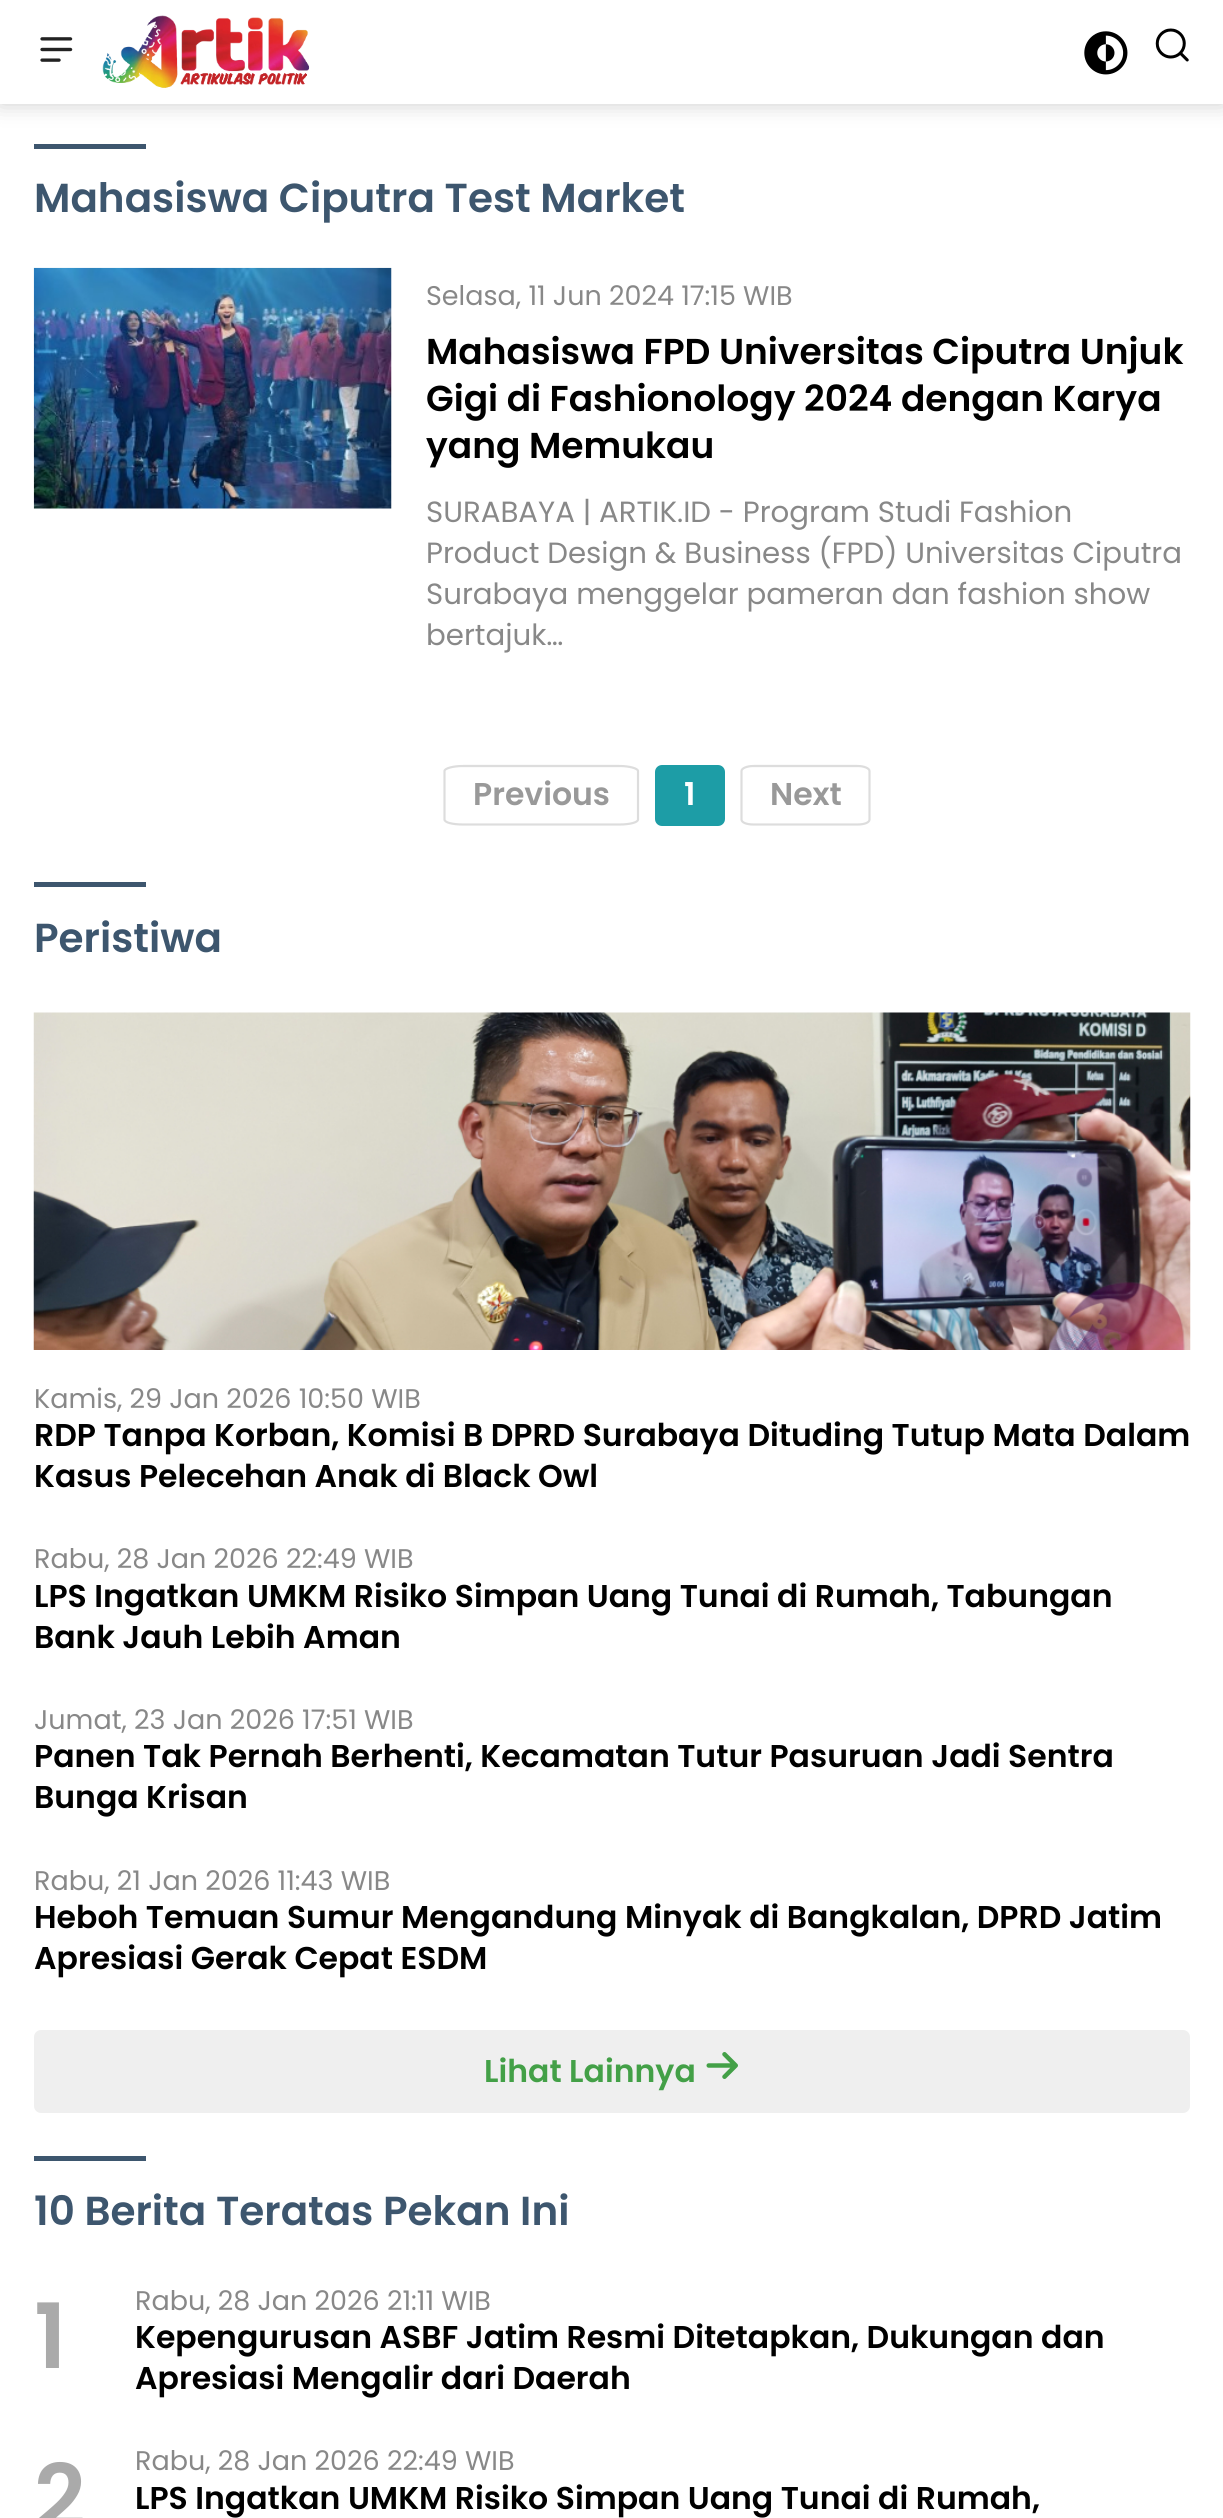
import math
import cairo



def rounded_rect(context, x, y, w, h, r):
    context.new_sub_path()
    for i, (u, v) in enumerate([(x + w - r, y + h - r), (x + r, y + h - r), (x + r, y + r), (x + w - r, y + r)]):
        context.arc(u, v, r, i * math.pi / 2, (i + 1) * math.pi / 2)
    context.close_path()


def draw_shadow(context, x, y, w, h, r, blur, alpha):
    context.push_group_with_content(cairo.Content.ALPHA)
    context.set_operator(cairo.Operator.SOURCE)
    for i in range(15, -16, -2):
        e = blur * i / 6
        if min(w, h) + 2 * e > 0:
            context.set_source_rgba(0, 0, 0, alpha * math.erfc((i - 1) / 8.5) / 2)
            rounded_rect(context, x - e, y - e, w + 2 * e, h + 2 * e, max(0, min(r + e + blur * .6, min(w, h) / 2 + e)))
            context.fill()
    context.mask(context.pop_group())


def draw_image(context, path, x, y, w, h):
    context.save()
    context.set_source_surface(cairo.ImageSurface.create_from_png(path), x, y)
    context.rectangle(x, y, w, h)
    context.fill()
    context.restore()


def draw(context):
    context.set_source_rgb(1, 1, 1)
    context.paint()
    context.set_source_rgb(0, 0, 0)
    draw_shadow(context, 0, 0, 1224, 104, 0, 11, 0.2)
    context.set_source_rgb(1, 1, 1)
    context.rectangle(0, 0, 1223, 104)
    context.fill()
    draw_image(context, "images/1.png", 40, 37, 33, 25)
    draw_image(context, "images/2.png", 102, 15, 208, 73)
    draw_image(context, "images/3.png", 1084, 31, 44, 44)
    draw_image(context, "images/4.png", 1155, 28, 34, 34)
    context.set_source_rgb(61 / 255, 86 / 255, 110 / 255)
    context.rectangle(34, 144, 112, 5)
    context.fill()
    draw_image(context, "images/5.png", 33, 267, 359, 242)
    context.new_path()
    context.move_to(463, 766)
    context.line_to(619.5, 766)
    context.curve_to(629.5, 766, 638, 768.5, 638, 771)
    context.line_to(638, 819.5)
    context.curve_to(638, 822.5, 629.5, 824.5, 619.5, 824.5)
    context.line_to(463, 824.5)
    context.curve_to(452.5, 824.5, 444.5, 822.5, 444.5, 819.5)
    context.line_to(444.5, 771)
    context.curve_to(444.5, 768.5, 452.5, 766, 463, 766)
    context.close_path()
    context.set_source_rgb(221 / 255, 221 / 255, 221 / 255)
    context.set_line_width(2.2)
    context.stroke()
    context.set_source_rgb(29 / 255, 157 / 255, 166 / 255)
    rounded_rect(context, 656, 766, 68, 59, 6)
    context.fill_preserve()
    context.set_line_width(2)
    context.stroke()
    context.new_path()
    context.move_to(753.5, 766)
    context.line_to(857.5, 766)
    context.curve_to(864.5, 766, 869.5, 768.5, 869.5, 771)
    context.line_to(869.5, 819.5)
    context.curve_to(869.5, 822.5, 864.5, 824.5, 857.5, 824.5)
    context.line_to(753.5, 824.5)
    context.curve_to(746.5, 824.5, 741.5, 822.5, 741.5, 819.5)
    context.line_to(741.5, 771)
    context.curve_to(741.5, 768.5, 746.5, 766, 753.5, 766)
    context.close_path()
    context.set_source_rgb(221 / 255, 221 / 255, 221 / 255)
    context.set_line_width(2.2)
    context.stroke()
    context.set_source_rgb(61 / 255, 86 / 255, 110 / 255)
    context.rectangle(34, 882, 112, 5)
    context.fill()
    draw_image(context, "images/6.png", 33, 1012, 1158, 338)
    context.set_source_rgb(239 / 255, 239 / 255, 239 / 255)
    rounded_rect(context, 34, 2030, 1156, 83, 7)
    context.fill()
    draw_image(context, "images/7.png", 706, 2052, 32, 27)
    context.set_source_rgb(61 / 255, 86 / 255, 110 / 255)
    context.rectangle(34, 2156, 112, 5)
    context.fill()
    context.select_font_face("Poppins SemiBold")
    context.set_font_size(40.5)
    context.move_to(34, 212)
    context.show_text("Mahasiswa Ciputra Test Market")
    context.select_font_face("Poppins")
    context.set_font_size(27)
    context.set_source_rgb(136 / 255, 136 / 255, 136 / 255)
    context.move_to(426, 305)
    context.show_text("Selasa, 11 Jun 2024 17:15 WIB")
    context.select_font_face("Poppins SemiBold")
    context.set_font_size(36)
    context.set_source_rgb(0, 0, 0)
    context.move_to(426, 364)
    context.show_text("Mahasiswa FPD Universitas Ciputra Unjuk")
    context.move_to(426, 411)
    context.show_text("Gigi di Fashionology 2024 dengan Karya")
    context.move_to(426, 458)
    context.show_text("yang Memukau")
    context.select_font_face("Poppins")
    context.set_font_size(29.25)
    context.set_source_rgb(136 / 255, 136 / 255, 136 / 255)
    context.move_to(426, 522)
    context.show_text("SURABAYA | ARTIK.ID - Program Studi Fashion")
    context.move_to(426, 563)
    context.show_text("Product Design & Business (FPD) Universitas Ciputra")
    context.move_to(426, 604)
    context.show_text("Surabaya menggelar pameran dan fashion show")
    context.move_to(426, 645)
    context.show_text("bertajuk…")
    context.select_font_face("Poppins SemiBold")
    context.set_font_size(31.5)
    context.set_source_rgb(153 / 255, 153 / 255, 153 / 255)
    context.move_to(473, 805)
    context.show_text("Previous")
    context.set_source_rgb(1, 1, 1)
    context.move_to(684, 805)
    context.show_text("1")
    context.set_source_rgb(153 / 255, 153 / 255, 153 / 255)
    context.move_to(770, 805)
    context.show_text("Next")
    context.set_font_size(40.5)
    context.set_source_rgb(61 / 255, 86 / 255, 110 / 255)
    context.move_to(34, 952)
    context.show_text("Peristiwa")
    context.select_font_face("Poppins")
    context.set_font_size(27)
    context.set_source_rgb(136 / 255, 136 / 255, 136 / 255)
    context.move_to(34, 1408)
    context.show_text("Kamis, 29 Jan 2026 10:50 WIB")
    context.select_font_face("Poppins SemiBold")
    context.set_font_size(31.5)
    context.set_source_rgb(0, 0, 0)
    context.move_to(34, 1446)
    context.show_text("RDP Tanpa Korban, Komisi B DPRD Surabaya Dituding Tutup Mata Dalam")
    context.move_to(34, 1487)
    context.show_text("Kasus Pelecehan Anak di Black Owl")
    context.select_font_face("Poppins")
    context.set_font_size(27)
    context.set_source_rgb(136 / 255, 136 / 255, 136 / 255)
    context.move_to(34, 1568)
    context.show_text("Rabu, 28 Jan 2026 22:49 WIB")
    context.select_font_face("Poppins SemiBold")
    context.set_font_size(31.5)
    context.set_source_rgb(0, 0, 0)
    context.move_to(34, 1607)
    context.show_text("LPS Ingatkan UMKM Risiko Simpan Uang Tunai di Rumah, Tabungan")
    context.move_to(34, 1648)
    context.show_text("Bank Jauh Lebih Aman")
    context.select_font_face("Poppins")
    context.set_font_size(27)
    context.set_source_rgb(136 / 255, 136 / 255, 136 / 255)
    context.move_to(34, 1729)
    context.show_text("Jumat, 23 Jan 2026 17:51 WIB")
    context.select_font_face("Poppins SemiBold")
    context.set_font_size(31.5)
    context.set_source_rgb(0, 0, 0)
    context.move_to(34, 1767)
    context.show_text("Panen Tak Pernah Berhenti, Kecamatan Tutur Pasuruan Jadi Sentra")
    context.move_to(34, 1808)
    context.show_text("Bunga Krisan")
    context.select_font_face("Poppins")
    context.set_font_size(27)
    context.set_source_rgb(136 / 255, 136 / 255, 136 / 255)
    context.move_to(34, 1890)
    context.show_text("Rabu, 21 Jan 2026 11:43 WIB")
    context.select_font_face("Poppins SemiBold")
    context.set_font_size(31.5)
    context.set_source_rgb(0, 0, 0)
    context.move_to(34, 1928)
    context.show_text("Heboh Temuan Sumur Mengandung Minyak di Bangkalan, DPRD Jatim")
    context.move_to(34, 1969)
    context.show_text("Apresiasi Gerak Cepat ESDM")
    context.set_source_rgb(67 / 255, 160 / 255, 71 / 255)
    context.move_to(484, 2082)
    context.show_text("Lihat Lainnya")
    context.set_font_size(40.5)
    context.set_source_rgb(61 / 255, 86 / 255, 110 / 255)
    context.move_to(34, 2225)
    context.show_text("10 Berita Teratas Pekan Ini")
    context.set_font_size(90)
    context.set_source_rgb(170 / 255, 170 / 255, 170 / 255)
    context.move_to(34, 2368)
    context.show_text("1")
    context.select_font_face("Poppins")
    context.set_font_size(27)
    context.set_source_rgb(136 / 255, 136 / 255, 136 / 255)
    context.move_to(135, 2310)
    context.show_text("Rabu, 28 Jan 2026 21:11 WIB")
    context.select_font_face("Poppins SemiBold")
    context.set_font_size(31.5)
    context.set_source_rgb(0, 0, 0)
    context.move_to(135, 2348)
    context.show_text("Kepengurusan ASBF Jatim Resmi Ditetapkan, Dukungan dan")
    context.move_to(135, 2389)
    context.show_text("Apresiasi Mengalir dari Daerah")
    context.set_font_size(90)
    context.set_source_rgb(170 / 255, 170 / 255, 170 / 255)
    context.move_to(34, 2529)
    context.show_text("2")
    context.select_font_face("Poppins")
    context.set_font_size(27)
    context.set_source_rgb(136 / 255, 136 / 255, 136 / 255)
    context.move_to(135, 2470)
    context.show_text("Rabu, 28 Jan 2026 22:49 WIB")
    context.select_font_face("Poppins SemiBold")
    context.set_font_size(31.5)
    context.set_source_rgb(0, 0, 0)
    context.move_to(135, 2509)
    context.show_text("LPS Ingatkan UMKM Risiko Simpan Uang Tunai di Rumah,")


surface = cairo.ImageSurface(cairo.Format.RGB24, 1223, 2518)
context = cairo.Context(surface)
options = cairo.FontOptions()
options.set_hint_metrics(cairo.HintMetrics.OFF)
options.set_hint_style(cairo.HintStyle.NONE)
context.set_font_options(options)
context.set_miter_limit(4)
draw(context)
surface.write_to_png("out.png")
